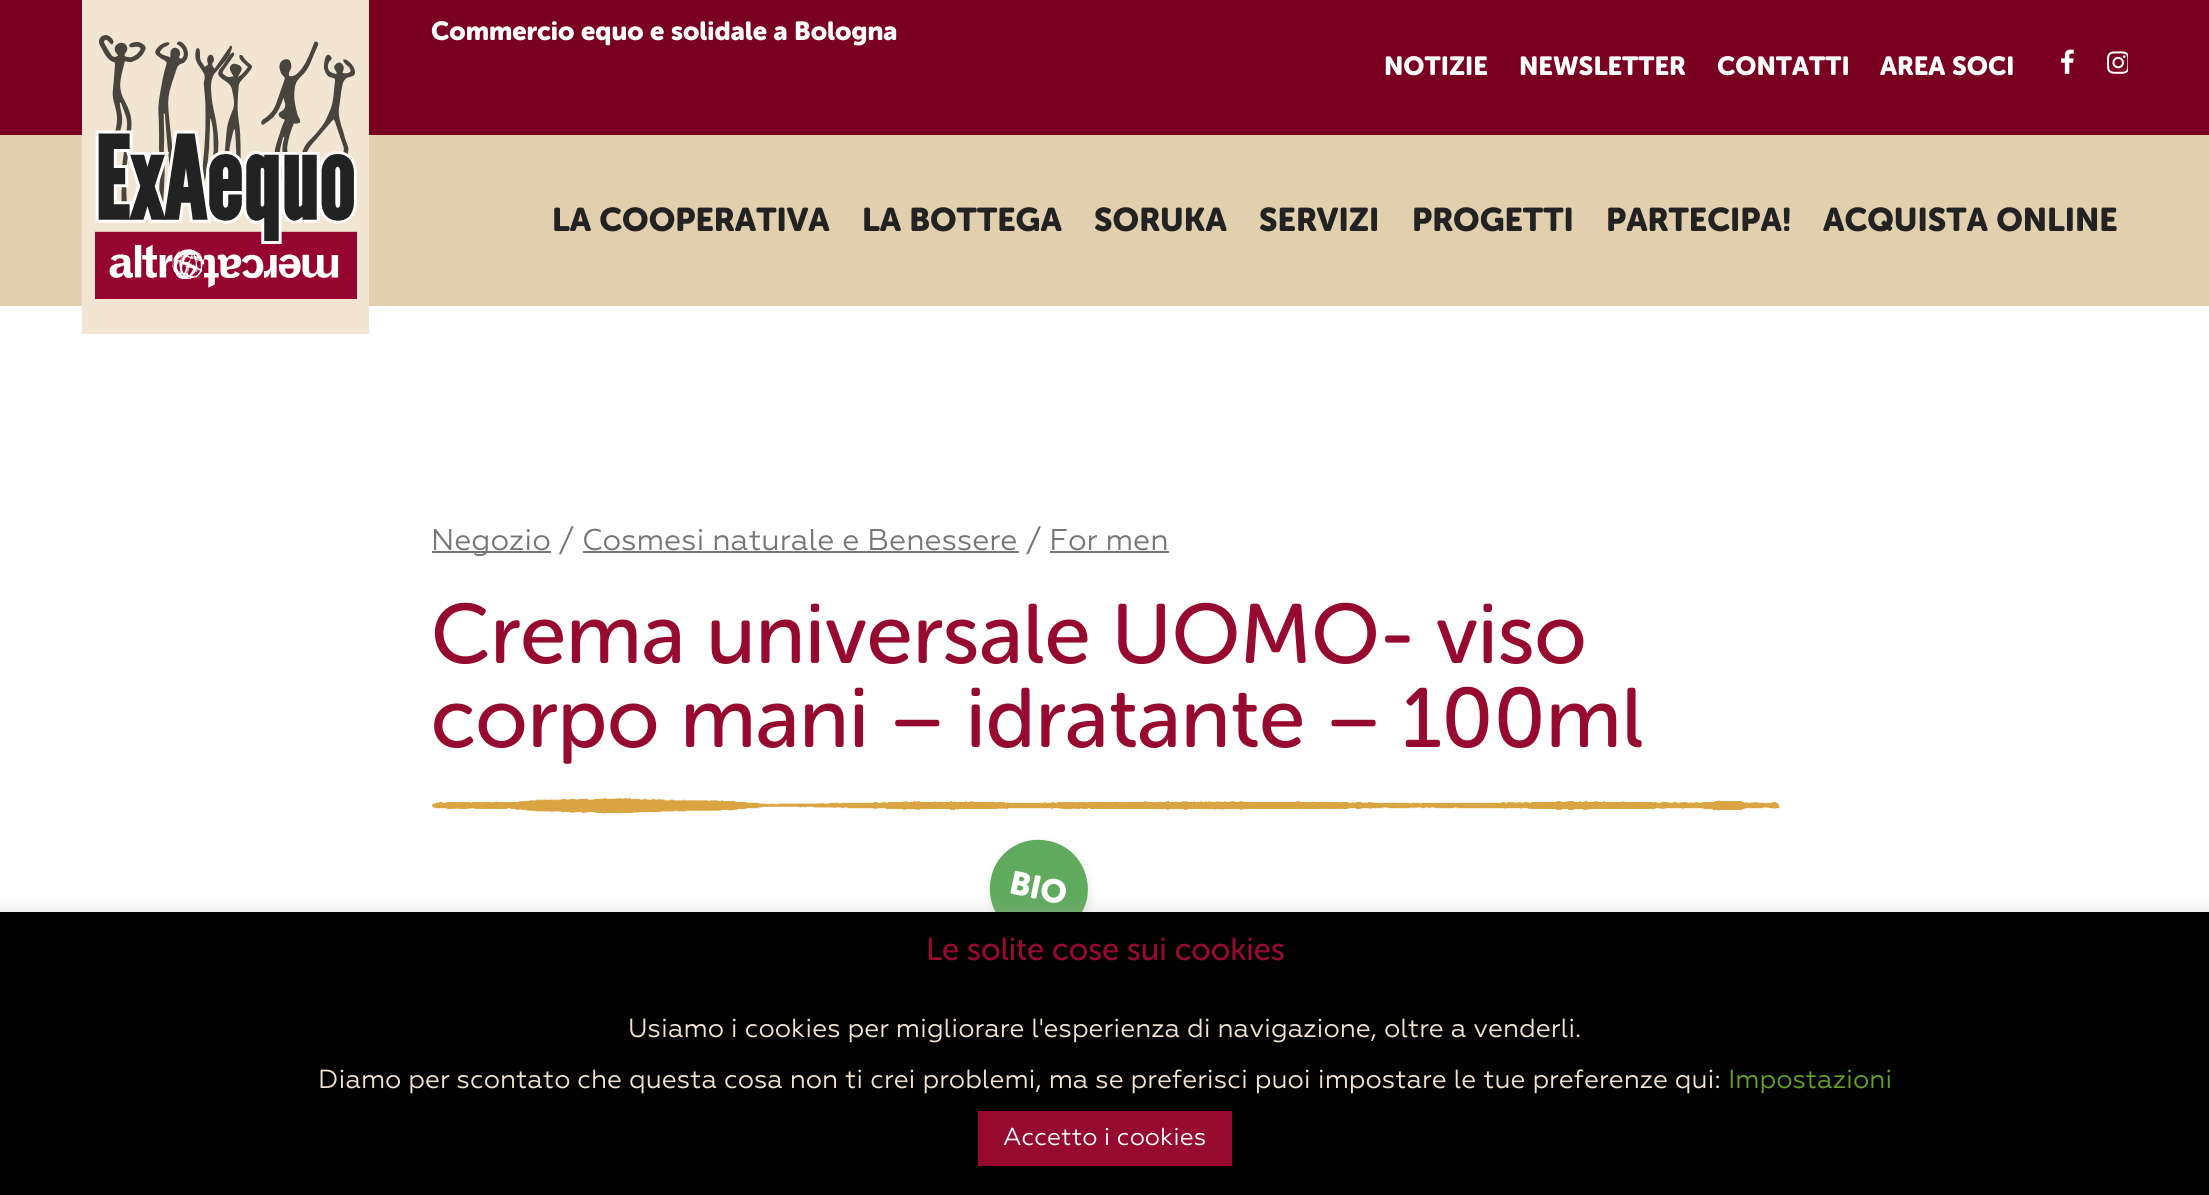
import math
import cairo



def rounded_rect(context, x, y, w, h, r):
    context.new_sub_path()
    for i, (u, v) in enumerate([(x + w - r, y + h - r), (x + r, y + h - r), (x + r, y + r), (x + w - r, y + r)]):
        context.arc(u, v, r, i * math.pi / 2, (i + 1) * math.pi / 2)
    context.close_path()


def draw_shadow(context, x, y, w, h, r, blur, alpha):
    context.push_group_with_content(cairo.Content.ALPHA)
    context.set_operator(cairo.Operator.SOURCE)
    for i in range(15, -16, -2):
        e = blur * i / 6
        if min(w, h) + 2 * e > 0:
            context.set_source_rgba(0, 0, 0, alpha * math.erfc((i - 1) / 8.5) / 2)
            rounded_rect(context, x - e, y - e, w + 2 * e, h + 2 * e, max(0, min(r + e + blur * .6, min(w, h) / 2 + e)))
            context.fill()
    context.mask(context.pop_group())


def draw_image(context, path, x, y, w, h):
    context.save()
    context.set_source_surface(cairo.ImageSurface.create_from_png(path), x, y)
    context.rectangle(x, y, w, h)
    context.fill()
    context.restore()


def draw(context):
    context.set_source_rgb(1, 1, 1)
    context.paint()
    context.set_source_rgb(226 / 255, 207 / 255, 173 / 255)
    context.rectangle(0, 135, 2209, 171)
    context.fill()
    context.set_source_rgb(122 / 255, 0, 33 / 255)
    context.rectangle(0, 0, 2209, 135)
    context.fill()
    context.set_source_rgb(242 / 255, 230 / 255, 210 / 255)
    context.rectangle(82, 0, 287, 334)
    context.fill()
    draw_image(context, "images/1.png", 95, 35, 262, 264)
    draw_image(context, "images/2.png", 2061, 49, 13, 25)
    draw_image(context, "images/3.png", 2107, 51, 21, 23)
    context.set_source_rgb(118 / 255, 118 / 255, 118 / 255)
    context.rectangle(432, 551, 119, 2)
    context.fill()
    context.rectangle(583, 551, 436, 2)
    context.fill()
    context.rectangle(1050, 551, 119, 2)
    context.fill()
    draw_image(context, "images/4.png", 432, 798, 1348, 16)
    context.set_source_rgb(0, 0, 0)
    draw_shadow(context, 991, 844, 98, 98, 49, 4.5, 0.1)
    context.set_source_rgb(95 / 255, 170 / 255, 93 / 255)
    context.new_path()
    context.move_to(1049, 841)
    context.curve_to(1075, 846, 1092, 872, 1087, 899)
    context.curve_to(1081, 925, 1055, 942, 1028, 937)
    context.curve_to(1002, 931, 985, 905, 991, 878)
    context.curve_to(996, 852, 1022, 835, 1049, 841)
    context.close_path()
    context.fill()
    context.set_source_rgb(172 / 255, 171 / 255, 171 / 255)
    draw_shadow(context, 0, 910, 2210, 284, 0, 9, 0.3)
    context.set_source_rgb(2 / 255, 2 / 255, 2 / 255)
    context.rectangle(0, 912, 2209, 283)
    context.fill()
    context.set_source_rgb(151 / 255, 10 / 255, 48 / 255)
    context.rectangle(978, 1111, 254, 55)
    context.fill()
    context.select_font_face("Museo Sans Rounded", cairo.FontSlant.NORMAL, cairo.FontWeight.BOLD)
    context.set_font_size(26.1)
    context.set_source_rgb(1, 1, 1)
    context.move_to(431, 40)
    context.show_text("Commercio equo e solidale a Bologna")
    context.move_to(1384, 75)
    context.show_text("NOTIZIE")
    context.move_to(1519, 75)
    context.show_text("NEWSLETTER")
    context.move_to(1717, 75)
    context.show_text("CONTATTI")
    context.move_to(1880, 75)
    context.show_text("AREA SOCI")
    context.set_font_size(32.75)
    context.set_source_rgb(34 / 255, 34 / 255, 34 / 255)
    context.move_to(552, 231)
    context.show_text("LA COOPERATIVA")
    context.move_to(862, 231)
    context.show_text("LA BOTTEGA")
    context.move_to(1094, 231)
    context.show_text("SORUKA")
    context.move_to(1259, 231)
    context.show_text("SERVIZI")
    context.move_to(1412, 231)
    context.show_text("PROGETTI")
    context.move_to(1606, 231)
    context.show_text("PARTECIPA!")
    context.move_to(1823, 231)
    context.show_text("ACQUISTA ONLINE")
    context.select_font_face("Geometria")
    context.set_font_size(30)
    context.set_source_rgb(118 / 255, 118 / 255, 118 / 255)
    context.move_to(431, 550)
    context.show_text("Negozio / Cosmesi naturale e Benessere")
    context.move_to(1026, 550)
    context.show_text("/ For men")
    context.select_font_face("Museo Sans Rounded")
    context.set_font_size(84)
    context.set_source_rgb(151 / 255, 10 / 255, 48 / 255)
    context.move_to(431, 663)
    context.show_text("Crema universale UOMO- viso")
    context.move_to(431, 747)
    context.show_text("corpo mani – idratante – 100ml")
    context.select_font_face("Museo Sans Rounded", cairo.FontSlant.NORMAL, cairo.FontWeight.BOLD)
    context.set_font_size(32.75)
    context.set_source_rgb(1, 1, 1)
    context.save()
    context.translate(1008, 893)
    context.rotate(12 * math.pi / 180)
    context.move_to(0, 0)
    context.show_text("BIO")
    context.restore()
    context.select_font_face("Museo Sans Rounded")
    context.set_font_size(31.5)
    context.set_source_rgb(151 / 255, 10 / 255, 48 / 255)
    context.move_to(926, 960)
    context.show_text("Le solite cose sui cookies")
    context.select_font_face("Geometria")
    context.set_font_size(26.25)
    context.set_source_rgb(241 / 255, 229 / 255, 209 / 255)
    context.move_to(628, 1037)
    context.show_text("Usiamo i cookies per migliorare l'esperienza di navigazione, oltre a venderli.")
    context.move_to(318, 1088)
    context.show_text("Diamo per scontato che questa cosa non ti crei problemi, ma se preferisci puoi impostare le tue preferenze qui:")
    context.set_source_rgb(98 / 255, 163 / 255, 41 / 255)
    context.move_to(1728, 1088)
    context.show_text("Impostazioni")
    context.set_font_size(24.5)
    context.set_source_rgb(1, 1, 1)
    context.move_to(1003, 1145)
    context.show_text("Accetto i cookies")


surface = cairo.ImageSurface(cairo.Format.RGB24, 2209, 1195)
context = cairo.Context(surface)
options = cairo.FontOptions()
options.set_hint_metrics(cairo.HintMetrics.OFF)
options.set_hint_style(cairo.HintStyle.NONE)
context.set_font_options(options)
context.set_miter_limit(4)
draw(context)
surface.write_to_png("out.png")
